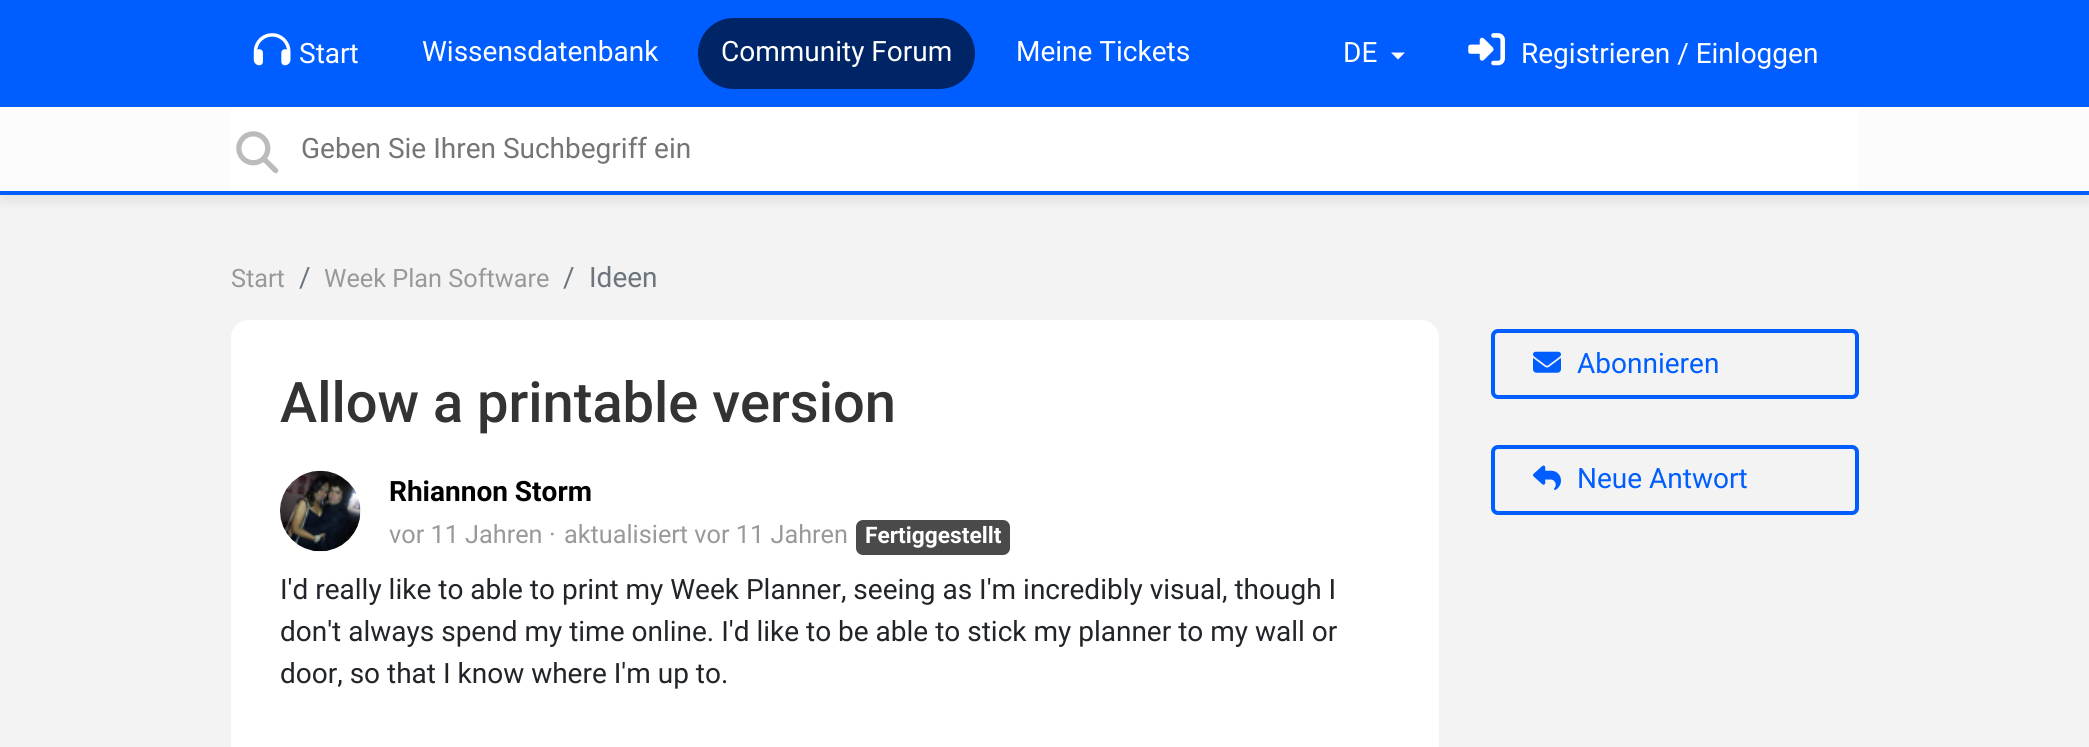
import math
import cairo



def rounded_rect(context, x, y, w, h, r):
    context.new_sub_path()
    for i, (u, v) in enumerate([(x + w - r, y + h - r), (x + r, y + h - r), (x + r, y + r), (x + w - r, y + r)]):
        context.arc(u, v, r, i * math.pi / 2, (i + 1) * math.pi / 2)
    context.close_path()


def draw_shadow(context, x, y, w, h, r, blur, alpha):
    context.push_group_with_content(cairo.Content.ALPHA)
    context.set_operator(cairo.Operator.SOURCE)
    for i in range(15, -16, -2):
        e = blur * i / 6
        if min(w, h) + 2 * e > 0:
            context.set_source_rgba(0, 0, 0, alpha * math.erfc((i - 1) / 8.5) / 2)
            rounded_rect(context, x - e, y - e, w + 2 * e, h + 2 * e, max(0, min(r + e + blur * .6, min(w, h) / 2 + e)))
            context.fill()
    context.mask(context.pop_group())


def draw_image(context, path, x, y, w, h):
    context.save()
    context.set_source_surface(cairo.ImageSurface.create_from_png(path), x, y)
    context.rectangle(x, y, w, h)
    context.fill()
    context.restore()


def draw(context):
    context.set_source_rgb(243 / 255, 243 / 255, 243 / 255)
    context.paint()
    context.set_source_rgb(0, 93 / 255, 1)
    context.rectangle(0, 0, 2089, 107)
    context.fill()
    draw_image(context, "images/1.png", 253, 33, 38, 33)
    context.set_source_rgb(0, 37 / 255, 102 / 255)
    rounded_rect(context, 698, 18, 277, 71, 35.5)
    context.fill()
    context.set_source_rgb(1, 1, 1)
    context.new_path()
    context.move_to(1391, 52.5)
    context.line_to(1405, 52.5)
    context.line_to(1398, 59.5)
    context.close_path()
    context.fill()
    draw_image(context, "images/2.png", 1468, 33, 37, 33)
    context.set_source_rgb(100 / 255, 100 / 255, 100 / 255)
    draw_shadow(context, 0, 116, 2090, 87, 0, 4.5, 0.1)
    context.set_source_rgb(252 / 255, 252 / 255, 252 / 255)
    context.rectangle(0, 107, 2089, 84)
    context.fill()
    context.set_source_rgb(0, 93 / 255, 1)
    context.rectangle(0, 191, 2089, 4)
    context.fill()
    context.set_source_rgb(1, 1, 1)
    context.rectangle(231, 107, 1628, 84)
    context.fill()
    draw_image(context, "images/3.png", 236, 131, 43, 43)
    rounded_rect(context, 231, 320, 1208, 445, 18)
    context.fill()
    draw_image(context, "images/4.png", 280, 470, 81, 82)
    context.set_source_rgb(74 / 255, 74 / 255, 74 / 255)
    rounded_rect(context, 856, 520, 154, 35, 7)
    context.fill()
    rounded_rect(context, 1493, 331, 364, 66, 5)
    context.set_source_rgb(0, 93 / 255, 1)
    context.set_line_width(4)
    context.stroke()
    draw_image(context, "images/5.png", 1533, 351, 28, 22)
    rounded_rect(context, 1493, 447, 364, 66, 5)
    context.stroke()
    draw_image(context, "images/6.png", 1533, 465, 28, 25)
    context.select_font_face("Roboto")
    context.set_font_size(28)
    context.set_source_rgb(1, 1, 1)
    context.move_to(299, 63)
    context.show_text("Start")
    context.move_to(422, 61)
    context.show_text("Wissensdatenbank")
    context.move_to(721, 61)
    context.show_text("Community Forum")
    context.move_to(1016, 61)
    context.show_text("Meine Tickets")
    context.move_to(1343, 62)
    context.show_text("DE")
    context.move_to(1521, 63)
    context.show_text("Registrieren / Einloggen")
    context.set_source_rgb(117 / 255, 117 / 255, 117 / 255)
    context.move_to(301, 158)
    context.show_text("Geben Sie Ihren Suchbegriff ein")
    context.set_font_size(25.25)
    context.set_source_rgb(153 / 255, 153 / 255, 153 / 255)
    context.move_to(231, 287)
    context.show_text("Start")
    context.set_font_size(28)
    context.set_source_rgb(108 / 255, 117 / 255, 125 / 255)
    context.move_to(299, 287)
    context.show_text("/")
    context.set_font_size(25.25)
    context.set_source_rgb(153 / 255, 153 / 255, 153 / 255)
    context.move_to(324, 287)
    context.show_text("Week Plan Software")
    context.set_font_size(28)
    context.set_source_rgb(108 / 255, 117 / 255, 125 / 255)
    context.move_to(563, 287)
    context.show_text("/")
    context.move_to(589, 287)
    context.show_text("Ideen")
    context.select_font_face("Roboto Medium")
    context.set_font_size(56)
    context.set_source_rgb(51 / 255, 51 / 255, 51 / 255)
    context.move_to(280, 422)
    context.show_text("Allow a printable version")
    context.select_font_face("Roboto", cairo.FontSlant.NORMAL, cairo.FontWeight.BOLD)
    context.set_font_size(28)
    context.set_source_rgb(0, 0, 0)
    context.move_to(389, 501)
    context.show_text("Rhiannon Storm")
    context.select_font_face("Roboto")
    context.set_font_size(25.25)
    context.set_source_rgb(153 / 255, 153 / 255, 153 / 255)
    context.move_to(389, 543)
    context.show_text("vor 11 Jahren")
    context.move_to(549, 543)
    context.show_text("·")
    context.move_to(564, 543)
    context.show_text("aktualisiert vor 11 Jahren")
    context.select_font_face("Roboto", cairo.FontSlant.NORMAL, cairo.FontWeight.BOLD)
    context.set_font_size(22.75)
    context.set_source_rgb(1, 1, 1)
    context.move_to(865, 543)
    context.show_text("Fertiggestellt")
    context.select_font_face("Roboto")
    context.set_font_size(28)
    context.set_source_rgb(33 / 255, 37 / 255, 41 / 255)
    context.move_to(280, 599)
    context.show_text("I'd really like to able to print my Week Planner, seeing as I'm incredibly visual, though I")
    context.move_to(280, 641)
    context.show_text("don't always spend my time online. I'd like to be able to stick my planner to my wall or")
    context.move_to(280, 683)
    context.show_text("door, so that I know where I'm up to.")
    context.set_source_rgb(0, 93 / 255, 1)
    context.move_to(1577, 373)
    context.show_text("Abonnieren")
    context.move_to(1577, 488)
    context.show_text("Neue Antwort")


surface = cairo.ImageSurface(cairo.Format.RGB24, 2089, 747)
context = cairo.Context(surface)
options = cairo.FontOptions()
options.set_hint_metrics(cairo.HintMetrics.OFF)
options.set_hint_style(cairo.HintStyle.NONE)
context.set_font_options(options)
context.set_miter_limit(4)
draw(context)
surface.write_to_png("out.png")
